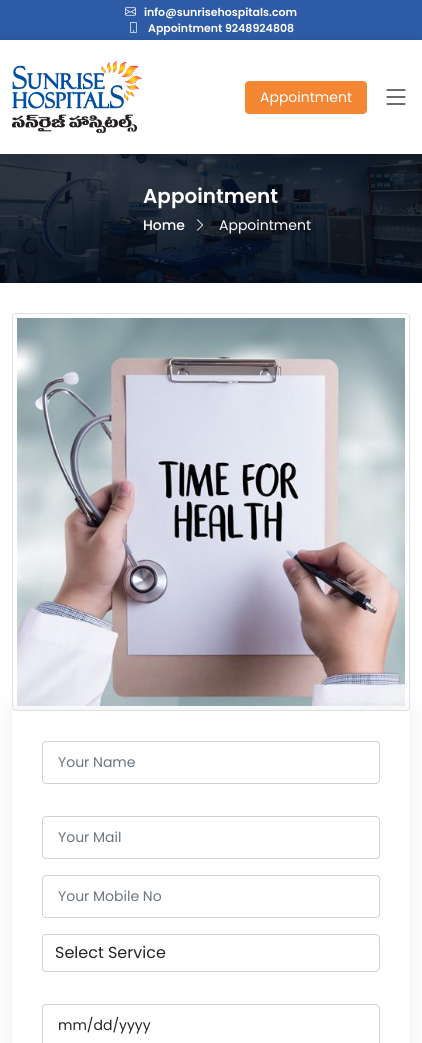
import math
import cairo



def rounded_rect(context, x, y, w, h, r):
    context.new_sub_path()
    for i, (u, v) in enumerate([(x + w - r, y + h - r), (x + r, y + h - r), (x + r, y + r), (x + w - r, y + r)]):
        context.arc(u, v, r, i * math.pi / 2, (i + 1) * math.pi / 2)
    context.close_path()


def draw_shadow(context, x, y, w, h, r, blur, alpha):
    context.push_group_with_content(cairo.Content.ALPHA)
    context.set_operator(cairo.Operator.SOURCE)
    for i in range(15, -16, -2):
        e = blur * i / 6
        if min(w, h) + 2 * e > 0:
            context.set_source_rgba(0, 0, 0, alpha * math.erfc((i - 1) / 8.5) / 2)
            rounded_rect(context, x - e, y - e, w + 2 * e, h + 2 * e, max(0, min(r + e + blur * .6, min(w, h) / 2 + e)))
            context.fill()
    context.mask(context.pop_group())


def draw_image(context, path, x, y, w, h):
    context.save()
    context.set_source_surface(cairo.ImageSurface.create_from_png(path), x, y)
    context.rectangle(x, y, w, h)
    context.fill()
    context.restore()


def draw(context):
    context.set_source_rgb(1, 1, 1)
    context.paint()
    context.set_source_rgb(46 / 255, 91 / 255, 166 / 255)
    context.rectangle(0, 0, 422, 40)
    context.fill()
    draw_image(context, "images/1.png", 125, 7, 11, 9)
    context.save()
    context.rectangle(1, 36, 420, 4)
    context.clip()
    context.set_source_rgb(0, 0, 0)
    draw_shadow(context, 0, 42, 422, 114, 0, 7.5, 0.1)
    context.restore()
    draw_image(context, "images/2.png", 130, 22, 7, 11)
    draw_image(context, "images/3.png", 12, 61, 130, 72)
    context.set_source_rgb(245 / 255, 134 / 255, 52 / 255)
    rounded_rect(context, 245, 81, 122, 33, 4)
    context.fill()
    draw_image(context, "images/4.png", 386, 89, 20, 16)
    draw_image(context, "images/5.png", 0, 154, 422, 129)
    draw_image(context, "images/6.png", 197, 219, 6, 12)
    rounded_rect(context, 12.5, 313.5, 397, 397, 3.5)
    context.set_source_rgb(222 / 255, 226 / 255, 230 / 255)
    context.set_line_width(1)
    context.stroke()
    draw_image(context, "images/7.png", 17, 318, 388, 388)
    context.save()
    context.set_fill_rule(cairo.FillRule.EVEN_ODD)
    context.new_path()
    context.move_to(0, 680)
    context.line_to(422, 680)
    context.line_to(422, 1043)
    context.line_to(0, 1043)
    context.close_path()
    context.move_to(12, 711)
    context.line_to(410, 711)
    context.line_to(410, 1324)
    context.line_to(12, 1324)
    context.close_path()
    context.clip()
    context.set_source_rgb(214 / 255, 215 / 255, 216 / 255)
    draw_shadow(context, 12, 711, 398, 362, 0, 10, 0.5)
    context.restore()
    rounded_rect(context, 42.5, 741.5, 337, 42, 3.5)
    context.set_source_rgb(206 / 255, 212 / 255, 218 / 255)
    context.stroke()
    rounded_rect(context, 42.5, 816.5, 337, 42, 3.5)
    context.stroke()
    rounded_rect(context, 42.5, 875.5, 337, 42, 3.5)
    context.stroke()
    rounded_rect(context, 42.5, 934.5, 337, 37, 3.5)
    context.stroke()
    rounded_rect(context, 42.5, 1004.5, 337, 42, 3.5)
    context.stroke()
    context.select_font_face("Poppins SemiBold")
    context.set_font_size(11)
    context.set_source_rgb(1, 1, 1)
    context.move_to(144, 16)
    context.show_text("info@sunrisehospitals.com")
    context.move_to(148, 32)
    context.show_text("Appointment 9248924808")
    context.select_font_face("Poppins")
    context.set_font_size(14)
    context.move_to(260, 102)
    context.show_text("Appointment")
    context.select_font_face("Poppins SemiBold")
    context.set_font_size(20)
    context.move_to(143, 203)
    context.show_text("Appointment")
    context.select_font_face("Poppins Medium")
    context.set_font_size(14)
    context.move_to(143, 230)
    context.show_text("Home")
    context.select_font_face("Poppins")
    context.move_to(219, 230)
    context.show_text("Appointment")
    context.set_source_rgb(108 / 255, 117 / 255, 125 / 255)
    context.move_to(58, 767)
    context.show_text("Your Name")
    context.move_to(58, 842)
    context.show_text("Your Mail")
    context.move_to(58, 901)
    context.show_text("Your Mobile No")
    context.set_font_size(16)
    context.set_source_rgb(33 / 255, 37 / 255, 41 / 255)
    context.move_to(55, 958)
    context.show_text("Select Service")
    context.set_font_size(14)
    context.move_to(58, 1030)
    context.show_text("mm/dd/yyyy")


surface = cairo.ImageSurface(cairo.Format.RGB24, 422, 1043)
context = cairo.Context(surface)
options = cairo.FontOptions()
options.set_hint_metrics(cairo.HintMetrics.OFF)
options.set_hint_style(cairo.HintStyle.NONE)
context.set_font_options(options)
context.set_miter_limit(4)
draw(context)
surface.write_to_png("out.png")
